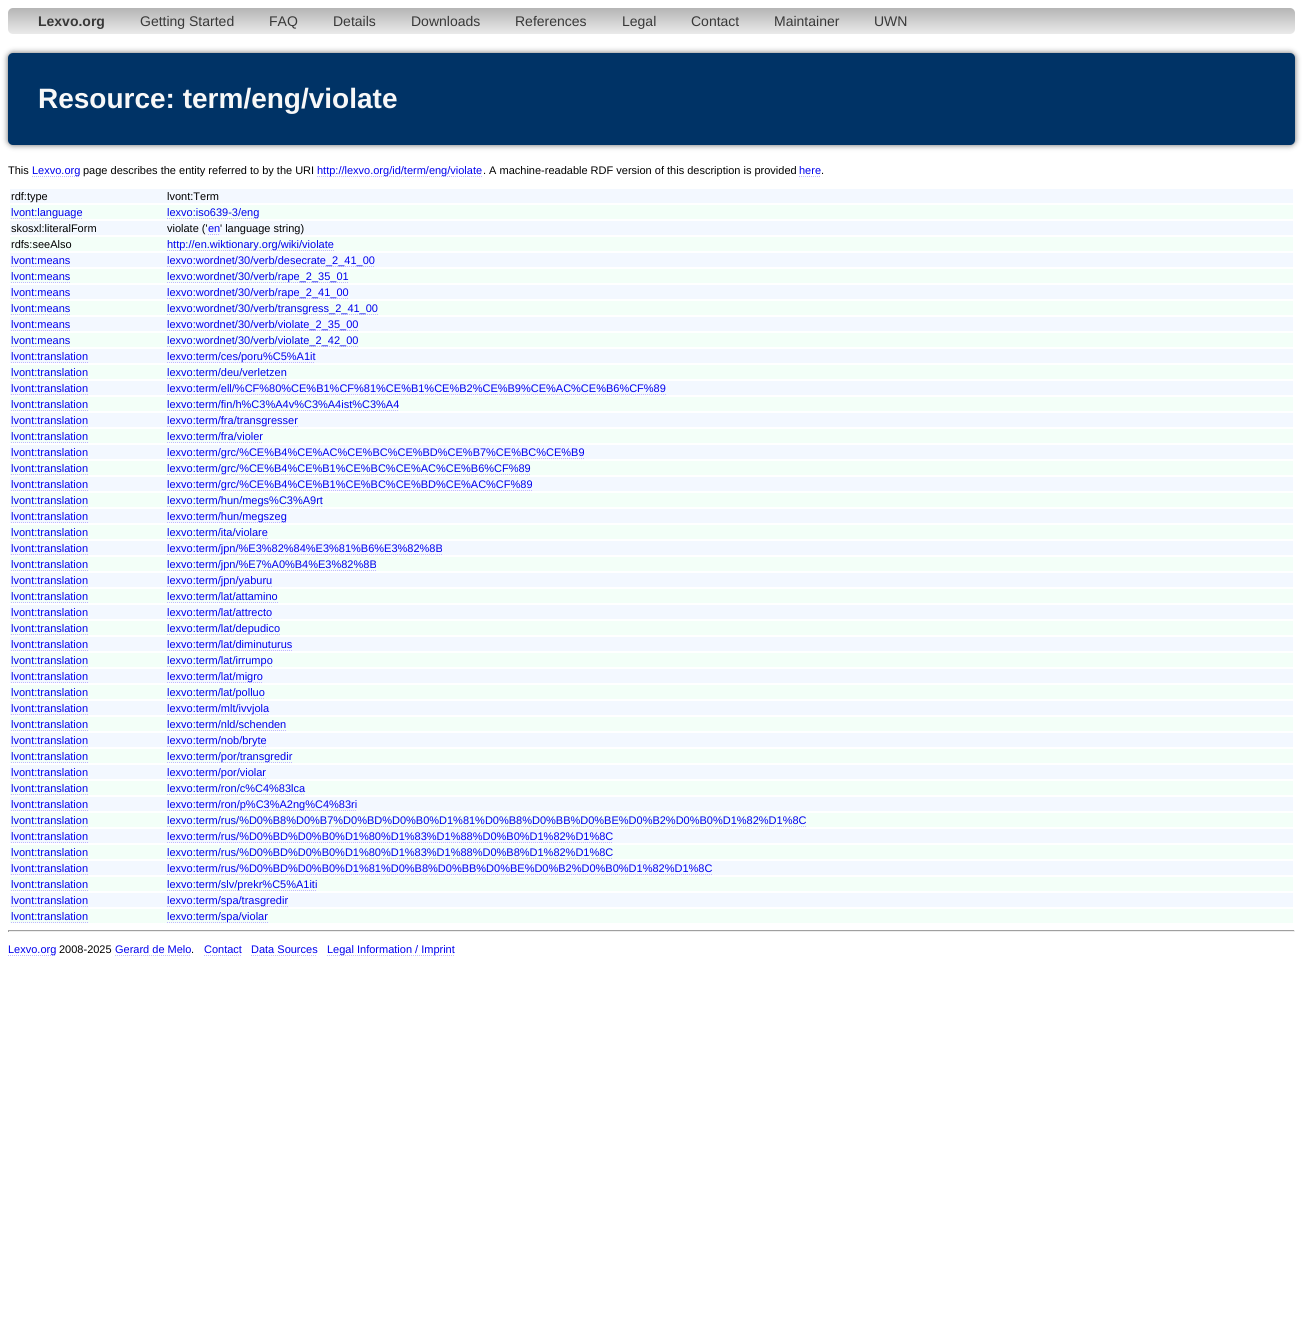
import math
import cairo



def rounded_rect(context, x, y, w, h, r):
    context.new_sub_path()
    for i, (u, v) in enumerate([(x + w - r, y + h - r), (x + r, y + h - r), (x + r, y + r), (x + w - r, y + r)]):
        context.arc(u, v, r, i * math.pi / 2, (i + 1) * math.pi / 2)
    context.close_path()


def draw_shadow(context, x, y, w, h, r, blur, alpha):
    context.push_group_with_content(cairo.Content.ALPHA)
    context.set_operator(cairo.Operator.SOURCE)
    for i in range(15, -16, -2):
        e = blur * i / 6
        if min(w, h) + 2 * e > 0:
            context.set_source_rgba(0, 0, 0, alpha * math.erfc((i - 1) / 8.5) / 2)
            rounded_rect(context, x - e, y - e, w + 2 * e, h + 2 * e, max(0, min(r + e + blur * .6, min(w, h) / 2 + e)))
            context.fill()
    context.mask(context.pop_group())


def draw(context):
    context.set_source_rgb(1, 1, 1)
    context.paint()
    gradient = cairo.LinearGradient(652, 8, 652, 34)
    gradient.add_color_stop_rgba(0, 181 / 255, 181 / 255, 181 / 255, 1)
    gradient.add_color_stop_rgba(1, 234 / 255, 234 / 255, 234 / 255, 1)
    context.set_source(gradient)
    rounded_rect(context, 8, 8, 1287, 26, 5)
    context.fill()
    context.set_source_rgb(0, 0, 0)
    draw_shadow(context, 8, 53, 1287, 92, 5, 3, 0.6)
    context.set_source_rgb(0, 51 / 255, 102 / 255)
    rounded_rect(context, 8, 53, 1287, 92, 5)
    context.fill()
    context.new_path()
    context.move_to(32, 176.5)
    context.line_to(80, 176.5)
    context.set_source_rgb(191 / 255, 182 / 255, 1)
    context.set_line_width(1)
    context.set_dash([1, 1])
    context.stroke()
    context.new_path()
    context.move_to(317, 176.5)
    context.line_to(483, 176.5)
    context.stroke()
    context.new_path()
    context.move_to(799, 176.5)
    context.line_to(821, 176.5)
    context.stroke()
    context.set_source_rgb(243 / 255, 248 / 255, 1)
    context.rectangle(10, 189, 1283, 14)
    context.fill()
    context.set_source_rgb(243 / 255, 1, 248 / 255)
    context.rectangle(10, 205, 1283, 14)
    context.fill()
    context.new_path()
    context.move_to(11, 218.5)
    context.line_to(83, 218.5)
    context.set_source_rgb(191 / 255, 182 / 255, 1)
    context.stroke()
    context.new_path()
    context.move_to(167, 218.5)
    context.line_to(259, 218.5)
    context.stroke()
    context.set_source_rgb(243 / 255, 248 / 255, 1)
    context.rectangle(10, 221, 1283, 14)
    context.fill()
    context.new_path()
    context.move_to(208, 234.5)
    context.line_to(220, 234.5)
    context.set_source_rgb(191 / 255, 182 / 255, 1)
    context.stroke()
    context.set_source_rgb(243 / 255, 1, 248 / 255)
    context.rectangle(10, 237, 1283, 14)
    context.fill()
    context.new_path()
    context.move_to(167, 250.5)
    context.line_to(334, 250.5)
    context.set_source_rgb(191 / 255, 182 / 255, 1)
    context.stroke()
    context.set_source_rgb(243 / 255, 248 / 255, 1)
    context.rectangle(10, 253, 1283, 14)
    context.fill()
    context.new_path()
    context.move_to(11, 266.5)
    context.line_to(70, 266.5)
    context.set_source_rgb(191 / 255, 182 / 255, 1)
    context.stroke()
    context.new_path()
    context.move_to(167, 266.5)
    context.line_to(375, 266.5)
    context.stroke()
    context.set_source_rgb(243 / 255, 1, 248 / 255)
    context.rectangle(10, 269, 1283, 14)
    context.fill()
    context.new_path()
    context.move_to(11, 282.5)
    context.line_to(70, 282.5)
    context.set_source_rgb(191 / 255, 182 / 255, 1)
    context.stroke()
    context.new_path()
    context.move_to(167, 282.5)
    context.line_to(349, 282.5)
    context.stroke()
    context.set_source_rgb(243 / 255, 248 / 255, 1)
    context.rectangle(10, 285, 1283, 14)
    context.fill()
    context.new_path()
    context.move_to(11, 298.5)
    context.line_to(70, 298.5)
    context.set_source_rgb(191 / 255, 182 / 255, 1)
    context.stroke()
    context.new_path()
    context.move_to(167, 298.5)
    context.line_to(349, 298.5)
    context.stroke()
    context.set_source_rgb(243 / 255, 1, 248 / 255)
    context.rectangle(10, 301, 1283, 14)
    context.fill()
    context.new_path()
    context.move_to(11, 314.5)
    context.line_to(70, 314.5)
    context.set_source_rgb(191 / 255, 182 / 255, 1)
    context.stroke()
    context.new_path()
    context.move_to(167, 314.5)
    context.line_to(378, 314.5)
    context.stroke()
    context.set_source_rgb(243 / 255, 248 / 255, 1)
    context.rectangle(10, 317, 1283, 14)
    context.fill()
    context.new_path()
    context.move_to(11, 330.5)
    context.line_to(70, 330.5)
    context.set_source_rgb(191 / 255, 182 / 255, 1)
    context.stroke()
    context.new_path()
    context.move_to(167, 330.5)
    context.line_to(358, 330.5)
    context.stroke()
    context.set_source_rgb(243 / 255, 1, 248 / 255)
    context.rectangle(10, 333, 1283, 14)
    context.fill()
    context.new_path()
    context.move_to(11, 346.5)
    context.line_to(70, 346.5)
    context.set_source_rgb(191 / 255, 182 / 255, 1)
    context.stroke()
    context.new_path()
    context.move_to(167, 346.5)
    context.line_to(358, 346.5)
    context.stroke()
    context.set_source_rgb(243 / 255, 248 / 255, 1)
    context.rectangle(10, 349, 1283, 14)
    context.fill()
    context.new_path()
    context.move_to(11, 362.5)
    context.line_to(88, 362.5)
    context.set_source_rgb(191 / 255, 182 / 255, 1)
    context.stroke()
    context.new_path()
    context.move_to(167, 362.5)
    context.line_to(315, 362.5)
    context.stroke()
    context.set_source_rgb(243 / 255, 1, 248 / 255)
    context.rectangle(10, 365, 1283, 14)
    context.fill()
    context.new_path()
    context.move_to(11, 378.5)
    context.line_to(88, 378.5)
    context.set_source_rgb(191 / 255, 182 / 255, 1)
    context.stroke()
    context.new_path()
    context.move_to(167, 378.5)
    context.line_to(287, 378.5)
    context.stroke()
    context.set_source_rgb(243 / 255, 248 / 255, 1)
    context.rectangle(10, 381, 1283, 14)
    context.fill()
    context.new_path()
    context.move_to(11, 394.5)
    context.line_to(88, 394.5)
    context.set_source_rgb(191 / 255, 182 / 255, 1)
    context.stroke()
    context.new_path()
    context.move_to(167, 394.5)
    context.line_to(666, 394.5)
    context.stroke()
    context.set_source_rgb(243 / 255, 1, 248 / 255)
    context.rectangle(10, 397, 1283, 14)
    context.fill()
    context.new_path()
    context.move_to(11, 410.5)
    context.line_to(88, 410.5)
    context.set_source_rgb(191 / 255, 182 / 255, 1)
    context.stroke()
    context.new_path()
    context.move_to(167, 410.5)
    context.line_to(399, 410.5)
    context.stroke()
    context.set_source_rgb(243 / 255, 248 / 255, 1)
    context.rectangle(10, 413, 1283, 14)
    context.fill()
    context.new_path()
    context.move_to(11, 426.5)
    context.line_to(88, 426.5)
    context.set_source_rgb(191 / 255, 182 / 255, 1)
    context.stroke()
    context.new_path()
    context.move_to(167, 426.5)
    context.line_to(298, 426.5)
    context.stroke()
    context.set_source_rgb(243 / 255, 1, 248 / 255)
    context.rectangle(10, 429, 1283, 14)
    context.fill()
    context.new_path()
    context.move_to(11, 442.5)
    context.line_to(88, 442.5)
    context.set_source_rgb(191 / 255, 182 / 255, 1)
    context.stroke()
    context.new_path()
    context.move_to(167, 442.5)
    context.line_to(263, 442.5)
    context.stroke()
    context.set_source_rgb(243 / 255, 248 / 255, 1)
    context.rectangle(10, 445, 1283, 14)
    context.fill()
    context.new_path()
    context.move_to(11, 458.5)
    context.line_to(88, 458.5)
    context.set_source_rgb(191 / 255, 182 / 255, 1)
    context.stroke()
    context.new_path()
    context.move_to(167, 458.5)
    context.line_to(584, 458.5)
    context.stroke()
    context.set_source_rgb(243 / 255, 1, 248 / 255)
    context.rectangle(10, 461, 1283, 14)
    context.fill()
    context.new_path()
    context.move_to(11, 474.5)
    context.line_to(88, 474.5)
    context.set_source_rgb(191 / 255, 182 / 255, 1)
    context.stroke()
    context.new_path()
    context.move_to(167, 474.5)
    context.line_to(531, 474.5)
    context.stroke()
    context.set_source_rgb(243 / 255, 248 / 255, 1)
    context.rectangle(10, 477, 1283, 14)
    context.fill()
    context.new_path()
    context.move_to(11, 490.5)
    context.line_to(88, 490.5)
    context.set_source_rgb(191 / 255, 182 / 255, 1)
    context.stroke()
    context.new_path()
    context.move_to(167, 490.5)
    context.line_to(532, 490.5)
    context.stroke()
    context.set_source_rgb(243 / 255, 1, 248 / 255)
    context.rectangle(10, 493, 1283, 14)
    context.fill()
    context.new_path()
    context.move_to(11, 506.5)
    context.line_to(88, 506.5)
    context.set_source_rgb(191 / 255, 182 / 255, 1)
    context.stroke()
    context.new_path()
    context.move_to(167, 506.5)
    context.line_to(323, 506.5)
    context.stroke()
    context.set_source_rgb(243 / 255, 248 / 255, 1)
    context.rectangle(10, 509, 1283, 14)
    context.fill()
    context.new_path()
    context.move_to(11, 522.5)
    context.line_to(88, 522.5)
    context.set_source_rgb(191 / 255, 182 / 255, 1)
    context.stroke()
    context.new_path()
    context.move_to(167, 522.5)
    context.line_to(287, 522.5)
    context.stroke()
    context.set_source_rgb(243 / 255, 1, 248 / 255)
    context.rectangle(10, 525, 1283, 14)
    context.fill()
    context.new_path()
    context.move_to(11, 538.5)
    context.line_to(88, 538.5)
    context.set_source_rgb(191 / 255, 182 / 255, 1)
    context.stroke()
    context.new_path()
    context.move_to(167, 538.5)
    context.line_to(268, 538.5)
    context.stroke()
    context.set_source_rgb(243 / 255, 248 / 255, 1)
    context.rectangle(10, 541, 1283, 14)
    context.fill()
    context.new_path()
    context.move_to(11, 554.5)
    context.line_to(88, 554.5)
    context.set_source_rgb(191 / 255, 182 / 255, 1)
    context.stroke()
    context.new_path()
    context.move_to(167, 554.5)
    context.line_to(443, 554.5)
    context.stroke()
    context.set_source_rgb(243 / 255, 1, 248 / 255)
    context.rectangle(10, 557, 1283, 14)
    context.fill()
    context.new_path()
    context.move_to(11, 570.5)
    context.line_to(88, 570.5)
    context.set_source_rgb(191 / 255, 182 / 255, 1)
    context.stroke()
    context.new_path()
    context.move_to(167, 570.5)
    context.line_to(377, 570.5)
    context.stroke()
    context.set_source_rgb(243 / 255, 248 / 255, 1)
    context.rectangle(10, 573, 1283, 14)
    context.fill()
    context.new_path()
    context.move_to(11, 586.5)
    context.line_to(88, 586.5)
    context.set_source_rgb(191 / 255, 182 / 255, 1)
    context.stroke()
    context.new_path()
    context.move_to(167, 586.5)
    context.line_to(272, 586.5)
    context.stroke()
    context.set_source_rgb(243 / 255, 1, 248 / 255)
    context.rectangle(10, 589, 1283, 14)
    context.fill()
    context.new_path()
    context.move_to(11, 602.5)
    context.line_to(88, 602.5)
    context.set_source_rgb(191 / 255, 182 / 255, 1)
    context.stroke()
    context.new_path()
    context.move_to(167, 602.5)
    context.line_to(278, 602.5)
    context.stroke()
    context.set_source_rgb(243 / 255, 248 / 255, 1)
    context.rectangle(10, 605, 1283, 14)
    context.fill()
    context.new_path()
    context.move_to(11, 618.5)
    context.line_to(88, 618.5)
    context.set_source_rgb(191 / 255, 182 / 255, 1)
    context.stroke()
    context.new_path()
    context.move_to(167, 618.5)
    context.line_to(272, 618.5)
    context.stroke()
    context.set_source_rgb(243 / 255, 1, 248 / 255)
    context.rectangle(10, 621, 1283, 14)
    context.fill()
    context.new_path()
    context.move_to(11, 634.5)
    context.line_to(88, 634.5)
    context.set_source_rgb(191 / 255, 182 / 255, 1)
    context.stroke()
    context.new_path()
    context.move_to(167, 634.5)
    context.line_to(280, 634.5)
    context.stroke()
    context.set_source_rgb(243 / 255, 248 / 255, 1)
    context.rectangle(10, 637, 1283, 14)
    context.fill()
    context.new_path()
    context.move_to(11, 650.5)
    context.line_to(88, 650.5)
    context.set_source_rgb(191 / 255, 182 / 255, 1)
    context.stroke()
    context.new_path()
    context.move_to(167, 650.5)
    context.line_to(292, 650.5)
    context.stroke()
    context.set_source_rgb(243 / 255, 1, 248 / 255)
    context.rectangle(10, 653, 1283, 14)
    context.fill()
    context.new_path()
    context.move_to(11, 666.5)
    context.line_to(88, 666.5)
    context.set_source_rgb(191 / 255, 182 / 255, 1)
    context.stroke()
    context.new_path()
    context.move_to(167, 666.5)
    context.line_to(273, 666.5)
    context.stroke()
    context.set_source_rgb(243 / 255, 248 / 255, 1)
    context.rectangle(10, 669, 1283, 14)
    context.fill()
    context.new_path()
    context.move_to(11, 682.5)
    context.line_to(88, 682.5)
    context.set_source_rgb(191 / 255, 182 / 255, 1)
    context.stroke()
    context.new_path()
    context.move_to(167, 682.5)
    context.line_to(263, 682.5)
    context.stroke()
    context.set_source_rgb(243 / 255, 1, 248 / 255)
    context.rectangle(10, 685, 1283, 14)
    context.fill()
    context.new_path()
    context.move_to(11, 698.5)
    context.line_to(88, 698.5)
    context.set_source_rgb(191 / 255, 182 / 255, 1)
    context.stroke()
    context.new_path()
    context.move_to(167, 698.5)
    context.line_to(265, 698.5)
    context.stroke()
    context.set_source_rgb(243 / 255, 248 / 255, 1)
    context.rectangle(10, 701, 1283, 14)
    context.fill()
    context.new_path()
    context.move_to(11, 714.5)
    context.line_to(88, 714.5)
    context.set_source_rgb(191 / 255, 182 / 255, 1)
    context.stroke()
    context.new_path()
    context.move_to(167, 714.5)
    context.line_to(269, 714.5)
    context.stroke()
    context.set_source_rgb(243 / 255, 1, 248 / 255)
    context.rectangle(10, 717, 1283, 14)
    context.fill()
    context.new_path()
    context.move_to(11, 730.5)
    context.line_to(88, 730.5)
    context.set_source_rgb(191 / 255, 182 / 255, 1)
    context.stroke()
    context.new_path()
    context.move_to(167, 730.5)
    context.line_to(286, 730.5)
    context.stroke()
    context.set_source_rgb(243 / 255, 248 / 255, 1)
    context.rectangle(10, 733, 1283, 14)
    context.fill()
    context.new_path()
    context.move_to(11, 746.5)
    context.line_to(88, 746.5)
    context.set_source_rgb(191 / 255, 182 / 255, 1)
    context.stroke()
    context.new_path()
    context.move_to(167, 746.5)
    context.line_to(267, 746.5)
    context.stroke()
    context.set_source_rgb(243 / 255, 1, 248 / 255)
    context.rectangle(10, 749, 1283, 14)
    context.fill()
    context.new_path()
    context.move_to(11, 762.5)
    context.line_to(88, 762.5)
    context.set_source_rgb(191 / 255, 182 / 255, 1)
    context.stroke()
    context.new_path()
    context.move_to(167, 762.5)
    context.line_to(292, 762.5)
    context.stroke()
    context.set_source_rgb(243 / 255, 248 / 255, 1)
    context.rectangle(10, 765, 1283, 14)
    context.fill()
    context.new_path()
    context.move_to(11, 778.5)
    context.line_to(88, 778.5)
    context.set_source_rgb(191 / 255, 182 / 255, 1)
    context.stroke()
    context.new_path()
    context.move_to(167, 778.5)
    context.line_to(266, 778.5)
    context.stroke()
    context.set_source_rgb(243 / 255, 1, 248 / 255)
    context.rectangle(10, 781, 1283, 14)
    context.fill()
    context.new_path()
    context.move_to(11, 794.5)
    context.line_to(88, 794.5)
    context.set_source_rgb(191 / 255, 182 / 255, 1)
    context.stroke()
    context.new_path()
    context.move_to(167, 794.5)
    context.line_to(305, 794.5)
    context.stroke()
    context.set_source_rgb(243 / 255, 248 / 255, 1)
    context.rectangle(10, 797, 1283, 14)
    context.fill()
    context.new_path()
    context.move_to(11, 810.5)
    context.line_to(88, 810.5)
    context.set_source_rgb(191 / 255, 182 / 255, 1)
    context.stroke()
    context.new_path()
    context.move_to(167, 810.5)
    context.line_to(357, 810.5)
    context.stroke()
    context.set_source_rgb(243 / 255, 1, 248 / 255)
    context.rectangle(10, 813, 1283, 14)
    context.fill()
    context.new_path()
    context.move_to(11, 826.5)
    context.line_to(88, 826.5)
    context.set_source_rgb(191 / 255, 182 / 255, 1)
    context.stroke()
    context.new_path()
    context.move_to(167, 826.5)
    context.line_to(806, 826.5)
    context.stroke()
    context.set_source_rgb(243 / 255, 248 / 255, 1)
    context.rectangle(10, 829, 1283, 14)
    context.fill()
    context.new_path()
    context.move_to(11, 842.5)
    context.line_to(88, 842.5)
    context.set_source_rgb(191 / 255, 182 / 255, 1)
    context.stroke()
    context.new_path()
    context.move_to(167, 842.5)
    context.line_to(613, 842.5)
    context.stroke()
    context.set_source_rgb(243 / 255, 1, 248 / 255)
    context.rectangle(10, 845, 1283, 14)
    context.fill()
    context.new_path()
    context.move_to(11, 858.5)
    context.line_to(88, 858.5)
    context.set_source_rgb(191 / 255, 182 / 255, 1)
    context.stroke()
    context.new_path()
    context.move_to(167, 858.5)
    context.line_to(613, 858.5)
    context.stroke()
    context.set_source_rgb(243 / 255, 248 / 255, 1)
    context.rectangle(10, 861, 1283, 14)
    context.fill()
    context.new_path()
    context.move_to(11, 874.5)
    context.line_to(88, 874.5)
    context.set_source_rgb(191 / 255, 182 / 255, 1)
    context.stroke()
    context.new_path()
    context.move_to(167, 874.5)
    context.line_to(712, 874.5)
    context.stroke()
    context.set_source_rgb(243 / 255, 1, 248 / 255)
    context.rectangle(10, 877, 1283, 14)
    context.fill()
    context.new_path()
    context.move_to(11, 890.5)
    context.line_to(88, 890.5)
    context.set_source_rgb(191 / 255, 182 / 255, 1)
    context.stroke()
    context.new_path()
    context.move_to(167, 890.5)
    context.line_to(317, 890.5)
    context.stroke()
    context.set_source_rgb(243 / 255, 248 / 255, 1)
    context.rectangle(10, 893, 1283, 14)
    context.fill()
    context.new_path()
    context.move_to(11, 906.5)
    context.line_to(88, 906.5)
    context.set_source_rgb(191 / 255, 182 / 255, 1)
    context.stroke()
    context.new_path()
    context.move_to(167, 906.5)
    context.line_to(288, 906.5)
    context.stroke()
    context.set_source_rgb(243 / 255, 1, 248 / 255)
    context.rectangle(10, 909, 1283, 14)
    context.fill()
    context.new_path()
    context.move_to(11, 922.5)
    context.line_to(88, 922.5)
    context.set_source_rgb(191 / 255, 182 / 255, 1)
    context.stroke()
    context.new_path()
    context.move_to(167, 922.5)
    context.line_to(268, 922.5)
    context.stroke()
    context.set_source_rgb(159 / 255, 159 / 255, 159 / 255)
    context.rectangle(8, 930, 1287, 1)
    context.fill()
    context.set_source_rgb(238 / 255, 238 / 255, 238 / 255)
    context.rectangle(1294, 930, 1, 2)
    context.fill()
    context.rectangle(8, 931, 1287, 1)
    context.fill()
    context.set_source_rgb(159 / 255, 159 / 255, 159 / 255)
    context.rectangle(8, 930, 1, 2)
    context.fill()
    context.new_path()
    context.move_to(8, 955.5)
    context.line_to(56, 955.5)
    context.set_source_rgb(191 / 255, 182 / 255, 1)
    context.stroke()
    context.new_path()
    context.move_to(115, 955.5)
    context.line_to(191, 955.5)
    context.stroke()
    context.new_path()
    context.move_to(204, 955.5)
    context.line_to(242, 955.5)
    context.stroke()
    context.new_path()
    context.move_to(251, 955.5)
    context.line_to(317, 955.5)
    context.stroke()
    context.new_path()
    context.move_to(327, 955.5)
    context.line_to(454, 955.5)
    context.stroke()
    context.select_font_face("Liberation Sans", cairo.FontSlant.NORMAL, cairo.FontWeight.BOLD)
    context.set_font_size(14)
    context.set_source_rgb(56 / 255, 56 / 255, 56 / 255)
    context.move_to(38, 26)
    context.show_text("Lexvo.org")
    context.select_font_face("Liberation Sans")
    context.move_to(140, 26)
    context.show_text("Getting Started")
    context.move_to(269, 26)
    context.show_text("FAQ")
    context.move_to(333, 26)
    context.show_text("Details")
    context.move_to(411, 26)
    context.show_text("Downloads")
    context.move_to(515, 26)
    context.show_text("References")
    context.move_to(622, 26)
    context.show_text("Legal")
    context.move_to(691, 26)
    context.show_text("Contact")
    context.move_to(774, 26)
    context.show_text("Maintainer")
    context.move_to(874, 26)
    context.show_text("UWN")
    context.select_font_face("Liberation Sans", cairo.FontSlant.NORMAL, cairo.FontWeight.BOLD)
    context.set_font_size(28)
    context.set_source_rgb(248 / 255, 248 / 255, 248 / 255)
    context.move_to(38, 108)
    context.show_text("Resource: term/eng/violate")
    context.select_font_face("Liberation Sans")
    context.set_font_size(11)
    context.set_source_rgb(0, 0, 0)
    context.move_to(8, 174)
    context.show_text("This")
    context.set_source_rgb(0, 0, 238 / 255)
    context.move_to(32, 174)
    context.show_text("Lexvo.org")
    context.set_source_rgb(0, 0, 0)
    context.move_to(83, 174)
    context.show_text("page describes the entity referred to by the URI")
    context.set_source_rgb(0, 0, 238 / 255)
    context.move_to(317, 174)
    context.show_text("http://lexvo.org/id/term/eng/violate")
    context.set_source_rgb(0, 0, 0)
    context.move_to(483, 174)
    context.show_text(". A machine-readable RDF version of this description is provided")
    context.set_source_rgb(0, 0, 238 / 255)
    context.move_to(799, 174)
    context.show_text("here")
    context.set_source_rgb(0, 0, 0)
    context.move_to(821, 174)
    context.show_text(".")
    context.move_to(11, 200)
    context.show_text("rdf:type")
    context.move_to(167, 200)
    context.show_text("lvont:Term")
    context.set_source_rgb(0, 0, 238 / 255)
    context.move_to(11, 216)
    context.show_text("lvont:language")
    context.move_to(167, 216)
    context.show_text("lexvo:iso639-3/eng")
    context.set_source_rgb(0, 0, 0)
    context.move_to(11, 232)
    context.show_text("skosxl:literalForm")
    context.move_to(167, 232)
    context.show_text("violate ('")
    context.set_source_rgb(0, 0, 238 / 255)
    context.move_to(208, 232)
    context.show_text("en")
    context.set_source_rgb(0, 0, 0)
    context.move_to(220, 232)
    context.show_text("' language string)")
    context.move_to(11, 248)
    context.show_text("rdfs:seeAlso")
    context.set_source_rgb(0, 0, 238 / 255)
    context.move_to(167, 248)
    context.show_text("http://en.wiktionary.org/wiki/violate")
    context.move_to(11, 264)
    context.show_text("lvont:means")
    context.move_to(167, 264)
    context.show_text("lexvo:wordnet/30/verb/desecrate_2_41_00")
    context.move_to(11, 280)
    context.show_text("lvont:means")
    context.move_to(167, 280)
    context.show_text("lexvo:wordnet/30/verb/rape_2_35_01")
    context.move_to(11, 296)
    context.show_text("lvont:means")
    context.move_to(167, 296)
    context.show_text("lexvo:wordnet/30/verb/rape_2_41_00")
    context.move_to(11, 312)
    context.show_text("lvont:means")
    context.move_to(167, 312)
    context.show_text("lexvo:wordnet/30/verb/transgress_2_41_00")
    context.move_to(11, 328)
    context.show_text("lvont:means")
    context.move_to(167, 328)
    context.show_text("lexvo:wordnet/30/verb/violate_2_35_00")
    context.move_to(11, 344)
    context.show_text("lvont:means")
    context.move_to(167, 344)
    context.show_text("lexvo:wordnet/30/verb/violate_2_42_00")
    context.move_to(11, 360)
    context.show_text("lvont:translation")
    context.move_to(167, 360)
    context.show_text("lexvo:term/ces/poru%C5%A1it")
    context.move_to(11, 376)
    context.show_text("lvont:translation")
    context.move_to(167, 376)
    context.show_text("lexvo:term/deu/verletzen")
    context.move_to(11, 392)
    context.show_text("lvont:translation")
    context.move_to(167, 392)
    context.show_text("lexvo:term/ell/%CF%80%CE%B1%CF%81%CE%B1%CE%B2%CE%B9%CE%AC%CE%B6%CF%89")
    context.move_to(11, 408)
    context.show_text("lvont:translation")
    context.move_to(167, 408)
    context.show_text("lexvo:term/fin/h%C3%A4v%C3%A4ist%C3%A4")
    context.move_to(11, 424)
    context.show_text("lvont:translation")
    context.move_to(167, 424)
    context.show_text("lexvo:term/fra/transgresser")
    context.move_to(11, 440)
    context.show_text("lvont:translation")
    context.move_to(167, 440)
    context.show_text("lexvo:term/fra/violer")
    context.move_to(11, 456)
    context.show_text("lvont:translation")
    context.move_to(167, 456)
    context.show_text("lexvo:term/grc/%CE%B4%CE%AC%CE%BC%CE%BD%CE%B7%CE%BC%CE%B9")
    context.move_to(11, 472)
    context.show_text("lvont:translation")
    context.move_to(167, 472)
    context.show_text("lexvo:term/grc/%CE%B4%CE%B1%CE%BC%CE%AC%CE%B6%CF%89")
    context.move_to(11, 488)
    context.show_text("lvont:translation")
    context.move_to(167, 488)
    context.show_text("lexvo:term/grc/%CE%B4%CE%B1%CE%BC%CE%BD%CE%AC%CF%89")
    context.move_to(11, 504)
    context.show_text("lvont:translation")
    context.move_to(167, 504)
    context.show_text("lexvo:term/hun/megs%C3%A9rt")
    context.move_to(11, 520)
    context.show_text("lvont:translation")
    context.move_to(167, 520)
    context.show_text("lexvo:term/hun/megszeg")
    context.move_to(11, 536)
    context.show_text("lvont:translation")
    context.move_to(167, 536)
    context.show_text("lexvo:term/ita/violare")
    context.move_to(11, 552)
    context.show_text("lvont:translation")
    context.move_to(167, 552)
    context.show_text("lexvo:term/jpn/%E3%82%84%E3%81%B6%E3%82%8B")
    context.move_to(11, 568)
    context.show_text("lvont:translation")
    context.move_to(167, 568)
    context.show_text("lexvo:term/jpn/%E7%A0%B4%E3%82%8B")
    context.move_to(11, 584)
    context.show_text("lvont:translation")
    context.move_to(167, 584)
    context.show_text("lexvo:term/jpn/yaburu")
    context.move_to(11, 600)
    context.show_text("lvont:translation")
    context.move_to(167, 600)
    context.show_text("lexvo:term/lat/attamino")
    context.move_to(11, 616)
    context.show_text("lvont:translation")
    context.move_to(167, 616)
    context.show_text("lexvo:term/lat/attrecto")
    context.move_to(11, 632)
    context.show_text("lvont:translation")
    context.move_to(167, 632)
    context.show_text("lexvo:term/lat/depudico")
    context.move_to(11, 648)
    context.show_text("lvont:translation")
    context.move_to(167, 648)
    context.show_text("lexvo:term/lat/diminuturus")
    context.move_to(11, 664)
    context.show_text("lvont:translation")
    context.move_to(167, 664)
    context.show_text("lexvo:term/lat/irrumpo")
    context.move_to(11, 680)
    context.show_text("lvont:translation")
    context.move_to(167, 680)
    context.show_text("lexvo:term/lat/migro")
    context.move_to(11, 696)
    context.show_text("lvont:translation")
    context.move_to(167, 696)
    context.show_text("lexvo:term/lat/polluo")
    context.move_to(11, 712)
    context.show_text("lvont:translation")
    context.move_to(167, 712)
    context.show_text("lexvo:term/mlt/ivvjola")
    context.move_to(11, 728)
    context.show_text("lvont:translation")
    context.move_to(167, 728)
    context.show_text("lexvo:term/nld/schenden")
    context.move_to(11, 744)
    context.show_text("lvont:translation")
    context.move_to(167, 744)
    context.show_text("lexvo:term/nob/bryte")
    context.move_to(11, 760)
    context.show_text("lvont:translation")
    context.move_to(167, 760)
    context.show_text("lexvo:term/por/transgredir")
    context.move_to(11, 776)
    context.show_text("lvont:translation")
    context.move_to(167, 776)
    context.show_text("lexvo:term/por/violar")
    context.move_to(11, 792)
    context.show_text("lvont:translation")
    context.move_to(167, 792)
    context.show_text("lexvo:term/ron/c%C4%83lca")
    context.move_to(11, 808)
    context.show_text("lvont:translation")
    context.move_to(167, 808)
    context.show_text("lexvo:term/ron/p%C3%A2ng%C4%83ri")
    context.move_to(11, 824)
    context.show_text("lvont:translation")
    context.move_to(167, 824)
    context.show_text("lexvo:term/rus/%D0%B8%D0%B7%D0%BD%D0%B0%D1%81%D0%B8%D0%BB%D0%BE%D0%B2%D0%B0%D1%82%D1%8C")
    context.move_to(11, 840)
    context.show_text("lvont:translation")
    context.move_to(167, 840)
    context.show_text("lexvo:term/rus/%D0%BD%D0%B0%D1%80%D1%83%D1%88%D0%B0%D1%82%D1%8C")
    context.move_to(11, 856)
    context.show_text("lvont:translation")
    context.move_to(167, 856)
    context.show_text("lexvo:term/rus/%D0%BD%D0%B0%D1%80%D1%83%D1%88%D0%B8%D1%82%D1%8C")
    context.move_to(11, 872)
    context.show_text("lvont:translation")
    context.move_to(167, 872)
    context.show_text("lexvo:term/rus/%D0%BD%D0%B0%D1%81%D0%B8%D0%BB%D0%BE%D0%B2%D0%B0%D1%82%D1%8C")
    context.move_to(11, 888)
    context.show_text("lvont:translation")
    context.move_to(167, 888)
    context.show_text("lexvo:term/slv/prekr%C5%A1iti")
    context.move_to(11, 904)
    context.show_text("lvont:translation")
    context.move_to(167, 904)
    context.show_text("lexvo:term/spa/trasgredir")
    context.move_to(11, 920)
    context.show_text("lvont:translation")
    context.move_to(167, 920)
    context.show_text("lexvo:term/spa/violar")
    context.move_to(8, 953)
    context.show_text("Lexvo.org")
    context.set_source_rgb(0, 0, 0)
    context.move_to(59, 953)
    context.show_text("2008-2025")
    context.set_source_rgb(0, 0, 238 / 255)
    context.move_to(115, 953)
    context.show_text("Gerard de Melo")
    context.set_source_rgb(0, 0, 0)
    context.move_to(191, 953)
    context.show_text(".")
    context.set_source_rgb(0, 0, 238 / 255)
    context.move_to(204, 953)
    context.show_text("Contact")
    context.move_to(251, 953)
    context.show_text("Data Sources")
    context.move_to(327, 953)
    context.show_text("Legal Information / Imprint")


surface = cairo.ImageSurface(cairo.Format.RGB24, 1303, 1329)
context = cairo.Context(surface)
options = cairo.FontOptions()
options.set_hint_metrics(cairo.HintMetrics.OFF)
options.set_hint_style(cairo.HintStyle.NONE)
context.set_font_options(options)
context.set_miter_limit(4)
draw(context)
surface.write_to_png("out.png")
